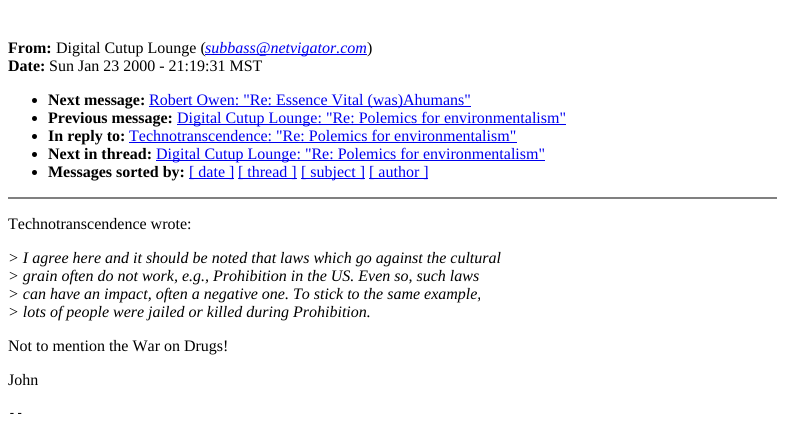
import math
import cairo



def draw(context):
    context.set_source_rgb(1, 1, 1)
    context.paint()
    context.set_source_rgb(0, 0, 238 / 255)
    context.rectangle(205, 54, 162, 1)
    context.fill()
    context.set_source_rgb(0, 0, 0)
    context.arc(34.5, 100.5, 2.5, 0, 2 * math.pi)
    context.fill()
    context.set_source_rgb(0, 0, 238 / 255)
    context.rectangle(149, 106, 322, 1)
    context.fill()
    context.set_source_rgb(0, 0, 0)
    context.arc(34.5, 118.5, 2.5, 0, 2 * math.pi)
    context.fill()
    context.set_source_rgb(0, 0, 238 / 255)
    context.rectangle(177, 124, 389, 1)
    context.fill()
    context.set_source_rgb(0, 0, 0)
    context.arc(34.5, 136.5, 2.5, 0, 2 * math.pi)
    context.fill()
    context.set_source_rgb(0, 0, 238 / 255)
    context.rectangle(129, 142, 388, 1)
    context.fill()
    context.set_source_rgb(0, 0, 0)
    context.arc(34.5, 154.5, 2.5, 0, 2 * math.pi)
    context.fill()
    context.set_source_rgb(0, 0, 238 / 255)
    context.rectangle(156, 160, 389, 1)
    context.fill()
    context.set_source_rgb(0, 0, 0)
    context.arc(34.5, 172.5, 2.5, 0, 2 * math.pi)
    context.fill()
    context.set_source_rgb(0, 0, 238 / 255)
    context.rectangle(189, 178, 45, 1)
    context.fill()
    context.rectangle(238, 178, 59, 1)
    context.fill()
    context.rectangle(301, 178, 64, 1)
    context.fill()
    context.rectangle(369, 178, 59, 1)
    context.fill()
    context.set_source_rgb(128 / 255, 128 / 255, 128 / 255)
    context.rectangle(8, 197, 769, 2)
    context.fill()
    context.select_font_face("Liberation Serif", cairo.FontSlant.NORMAL, cairo.FontWeight.BOLD)
    context.set_font_size(16)
    context.set_source_rgb(0, 0, 0)
    context.move_to(8, 53)
    context.show_text("From:")
    context.select_font_face("Liberation Serif")
    context.move_to(56, 53)
    context.show_text("Digital Cutup Lounge (")
    context.select_font_face("Liberation Serif", cairo.FontSlant.ITALIC)
    context.set_source_rgb(0, 0, 238 / 255)
    context.move_to(205, 53)
    context.show_text("subbass@netvigator.com")
    context.select_font_face("Liberation Serif")
    context.set_source_rgb(0, 0, 0)
    context.move_to(367, 53)
    context.show_text(")")
    context.select_font_face("Liberation Serif", cairo.FontSlant.NORMAL, cairo.FontWeight.BOLD)
    context.move_to(8, 71)
    context.show_text("Date:")
    context.select_font_face("Liberation Serif")
    context.move_to(49, 71)
    context.show_text("Sun Jan 23 2000 - 21:19:31 MST")
    context.select_font_face("Liberation Serif", cairo.FontSlant.NORMAL, cairo.FontWeight.BOLD)
    context.move_to(48, 105)
    context.show_text("Next message:")
    context.select_font_face("Liberation Serif")
    context.set_source_rgb(0, 0, 238 / 255)
    context.move_to(149, 105)
    context.show_text("Robert Owen: \"Re: Essence Vital (was)Ahumans\"")
    context.select_font_face("Liberation Serif", cairo.FontSlant.NORMAL, cairo.FontWeight.BOLD)
    context.set_source_rgb(0, 0, 0)
    context.move_to(48, 123)
    context.show_text("Previous message:")
    context.select_font_face("Liberation Serif")
    context.set_source_rgb(0, 0, 238 / 255)
    context.move_to(177, 123)
    context.show_text("Digital Cutup Lounge: \"Re: Polemics for environmentalism\"")
    context.select_font_face("Liberation Serif", cairo.FontSlant.NORMAL, cairo.FontWeight.BOLD)
    context.set_source_rgb(0, 0, 0)
    context.move_to(48, 141)
    context.show_text("In reply to:")
    context.select_font_face("Liberation Serif")
    context.set_source_rgb(0, 0, 238 / 255)
    context.move_to(129, 141)
    context.show_text("Technotranscendence: \"Re: Polemics for environmentalism\"")
    context.select_font_face("Liberation Serif", cairo.FontSlant.NORMAL, cairo.FontWeight.BOLD)
    context.set_source_rgb(0, 0, 0)
    context.move_to(48, 159)
    context.show_text("Next in thread:")
    context.select_font_face("Liberation Serif")
    context.set_source_rgb(0, 0, 238 / 255)
    context.move_to(156, 159)
    context.show_text("Digital Cutup Lounge: \"Re: Polemics for environmentalism\"")
    context.select_font_face("Liberation Serif", cairo.FontSlant.NORMAL, cairo.FontWeight.BOLD)
    context.set_source_rgb(0, 0, 0)
    context.move_to(48, 177)
    context.show_text("Messages sorted by:")
    context.select_font_face("Liberation Serif")
    context.set_source_rgb(0, 0, 238 / 255)
    context.move_to(189, 177)
    context.show_text("[ date ]")
    context.move_to(238, 177)
    context.show_text("[ thread ]")
    context.move_to(301, 177)
    context.show_text("[ subject ]")
    context.move_to(369, 177)
    context.show_text("[ author ]")
    context.set_source_rgb(0, 0, 0)
    context.move_to(8, 229)
    context.show_text("Technotranscendence wrote:")
    context.select_font_face("Liberation Serif", cairo.FontSlant.ITALIC)
    context.move_to(8, 263)
    context.show_text("> I agree here and it should be noted that laws which go against the cultural")
    context.move_to(8, 281)
    context.show_text("> grain often do not work, e.g., Prohibition in the US. Even so, such laws")
    context.move_to(8, 299)
    context.show_text("> can have an impact, often a negative one. To stick to the same example,")
    context.move_to(8, 317)
    context.show_text("> lots of people were jailed or killed during Prohibition.")
    context.select_font_face("Liberation Serif")
    context.move_to(8, 351)
    context.show_text("Not to mention the War on Drugs!")
    context.move_to(8, 385)
    context.show_text("John")
    context.select_font_face("DejaVu Sans Mono")
    context.set_font_size(13)
    context.move_to(8, 417)
    context.show_text("--")


surface = cairo.ImageSurface(cairo.Format.RGB24, 785, 422)
context = cairo.Context(surface)
options = cairo.FontOptions()
options.set_hint_metrics(cairo.HintMetrics.OFF)
options.set_hint_style(cairo.HintStyle.NONE)
context.set_font_options(options)
context.set_miter_limit(4)
draw(context)
surface.write_to_png("out.png")
